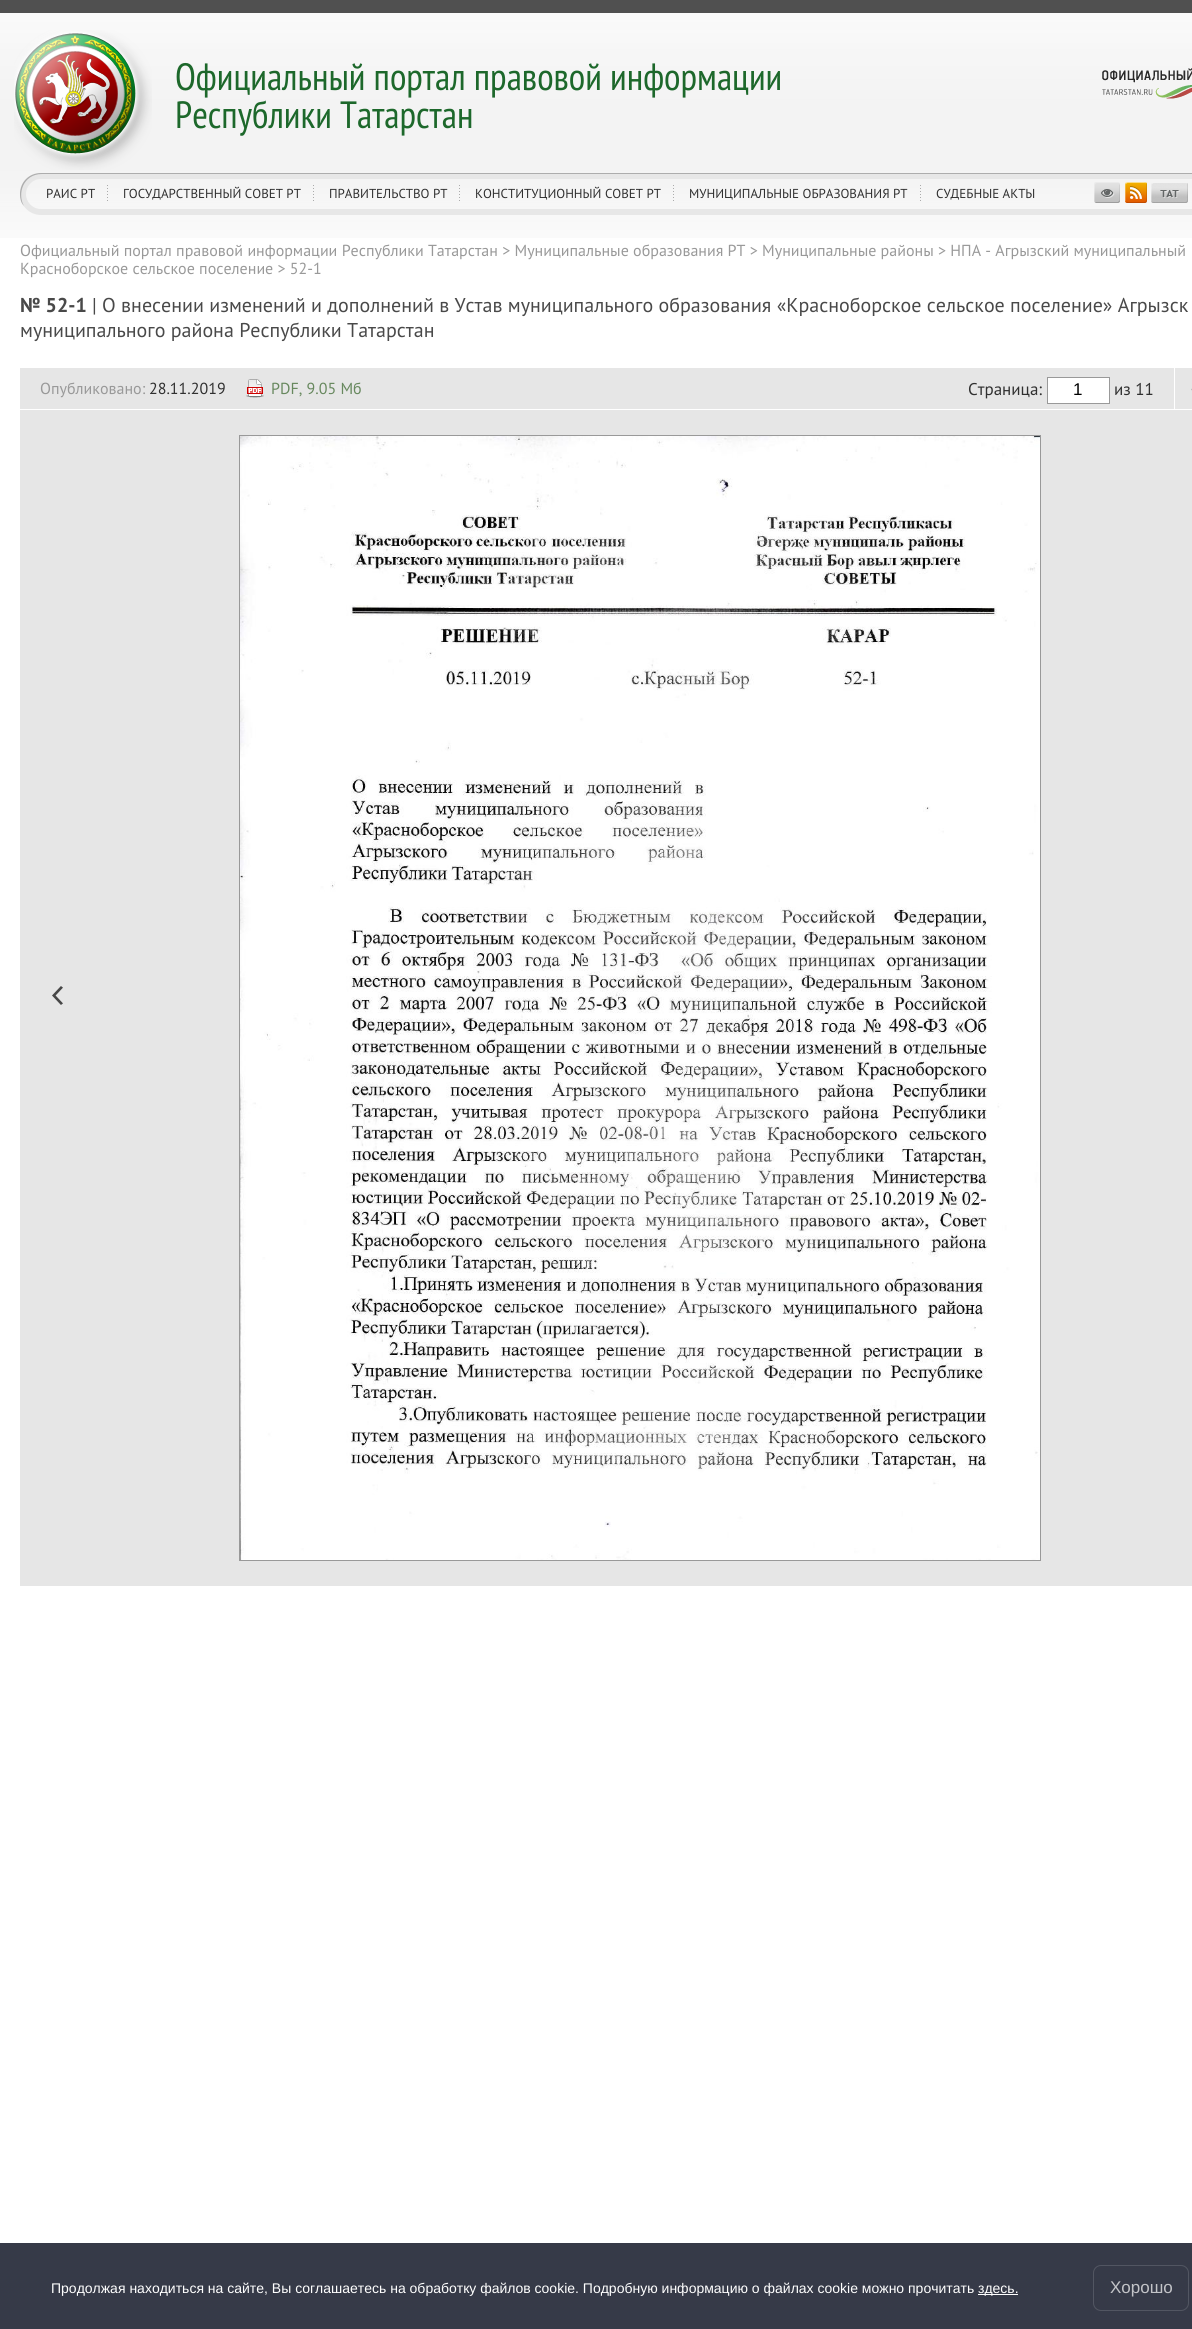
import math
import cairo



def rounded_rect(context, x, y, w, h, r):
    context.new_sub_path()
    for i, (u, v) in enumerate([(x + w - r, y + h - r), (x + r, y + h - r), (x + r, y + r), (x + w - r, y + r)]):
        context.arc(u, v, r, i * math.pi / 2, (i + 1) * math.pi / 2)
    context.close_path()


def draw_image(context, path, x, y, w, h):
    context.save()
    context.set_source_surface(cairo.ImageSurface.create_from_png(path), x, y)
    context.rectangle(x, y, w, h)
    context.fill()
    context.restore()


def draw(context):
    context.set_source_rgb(1, 1, 1)
    context.paint()
    context.set_source_rgb(80 / 255, 80 / 255, 80 / 255)
    context.rectangle(0, 0, 1192, 13)
    context.fill()
    draw_image(context, "images/1.png", 0, 13, 1192, 225)
    draw_image(context, "images/2.png", 14, 30, 138, 140)
    draw_image(context, "images/3.png", 1102, 68, 90, 31)
    rounded_rect(context, 23, 176, 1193, 36, 18)
    context.set_source_rgb(231 / 255, 231 / 255, 231 / 255)
    context.set_line_width(6)
    context.stroke()
    context.set_source_rgba(0, 0, 0, 0.25)
    context.new_path()
    context.move_to(42, 174)
    context.line_to(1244, 174)
    context.line_to(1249, 176)
    context.curve_to(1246, 174, 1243, 173, 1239, 173)
    context.line_to(41, 173)
    context.curve_to(29, 173, 20, 182, 20, 194)
    context.curve_to(20, 199, 21, 203, 24, 206)
    context.curve_to(17, 194, 23, 174, 42, 174)
    context.close_path()
    context.fill()
    draw_image(context, "images/4.png", 107, 185, 1, 16)
    draw_image(context, "images/4.png", 313, 185, 1, 16)
    draw_image(context, "images/4.png", 459, 185, 1, 16)
    draw_image(context, "images/4.png", 673, 185, 1, 16)
    draw_image(context, "images/4.png", 920, 185, 1, 16)
    draw_image(context, "images/5.png", 1094, 182, 26, 21)
    draw_image(context, "images/6.png", 1125, 182, 22, 21)
    draw_image(context, "images/7.png", 1151, 183, 37, 20)
    context.set_source_rgb(230 / 255, 230 / 255, 230 / 255)
    context.rectangle(20, 368, 1172, 1218)
    context.fill()
    context.set_source_rgb(1, 1, 1)
    context.rectangle(20, 409, 1172, 1)
    context.fill()
    draw_image(context, "images/8.png", 246, 379, 18, 19)
    context.rectangle(1047.5, 377.5, 62, 26)
    context.fill_preserve()
    context.set_source_rgb(153 / 255, 153 / 255, 153 / 255)
    context.set_line_width(1)
    context.stroke()
    draw_image(context, "images/9.png", 1191, 388, 1, 3)
    context.set_source_rgb(1, 1, 1)
    context.rectangle(1174, 368, 1, 41)
    context.fill()
    draw_image(context, "images/10.png", 52, 986, 11, 19)
    context.rectangle(239.5, 435.5, 801, 1125)
    context.set_source_rgb(153 / 255, 153 / 255, 153 / 255)
    context.stroke()
    draw_image(context, "images/11.png", 240, 436, 800, 1124)
    context.set_source_rgb(54 / 255, 58 / 255, 72 / 255)
    context.rectangle(0, 2243, 1192, 86)
    context.fill()
    context.set_source_rgb(1, 1, 1)
    context.rectangle(978, 2294, 40, 1)
    context.fill()
    rounded_rect(context, 1093.5, 2265.5, 95, 45, 7.5)
    context.set_source_rgb(82 / 255, 86 / 255, 98 / 255)
    context.stroke()
    context.select_font_face("PT Sans Narrow")
    context.set_font_size(38)
    context.set_source_rgb(29 / 255, 104 / 255, 43 / 255)
    context.move_to(175, 90)
    context.show_text("Официальный портал правовой информации")
    context.move_to(175, 128)
    context.show_text("Республики Татарстан")
    context.select_font_face("PT Sans")
    context.set_font_size(13)
    context.set_source_rgb(48 / 255, 48 / 255, 48 / 255)
    context.move_to(46, 198)
    context.show_text("РАИС РТ")
    context.move_to(123, 198)
    context.show_text("ГОСУДАРСТВЕННЫЙ СОВЕТ РТ")
    context.move_to(329, 198)
    context.show_text("ПРАВИТЕЛЬСТВО РТ")
    context.move_to(475, 198)
    context.show_text("КОНСТИТУЦИОННЫЙ СОВЕТ РТ")
    context.move_to(689, 198)
    context.show_text("МУНИЦИПАЛЬНЫЕ ОБРАЗОВАНИЯ РТ")
    context.move_to(936, 198)
    context.show_text("СУДЕБНЫЕ АКТЫ")
    context.set_font_size(16)
    context.set_source_rgb(153 / 255, 153 / 255, 153 / 255)
    context.move_to(20, 256)
    context.show_text("Официальный портал правовой информации Республики Татарстан > Муниципальные образования РТ > Муниципальные районы > НПА - Агрызский муниципальный")
    context.move_to(20, 274)
    context.show_text("Красноборское сельское поселение > 52-1")
    context.select_font_face("PT Sans", cairo.FontSlant.NORMAL, cairo.FontWeight.BOLD)
    context.set_font_size(20)
    context.set_source_rgb(73 / 255, 73 / 255, 73 / 255)
    context.move_to(20, 312)
    context.show_text("№ 52-1")
    context.select_font_face("PT Sans")
    context.move_to(92, 312)
    context.show_text("| О внесении изменений и дополнений в Устав муниципального образования «Красноборское сельское поселение» Агрызск")
    context.move_to(20, 337)
    context.show_text("муниципального района Республики Татарстан")
    context.set_font_size(16)
    context.set_source_rgb(153 / 255, 153 / 255, 153 / 255)
    context.move_to(40, 394)
    context.show_text("Опубликовано:")
    context.set_source_rgb(48 / 255, 48 / 255, 48 / 255)
    context.move_to(149, 394)
    context.show_text("28.11.2019")
    context.set_source_rgb(103 / 255, 136 / 255, 94 / 255)
    context.move_to(271, 394)
    context.show_text("PDF, 9.05 Мб")
    context.set_font_size(17)
    context.set_source_rgb(48 / 255, 48 / 255, 48 / 255)
    context.move_to(968, 395)
    context.show_text("Страница:")
    context.select_font_face("Liberation Sans")
    context.set_source_rgb(0, 0, 0)
    context.move_to(1073, 395)
    context.show_text("1")
    context.select_font_face("PT Sans")
    context.set_source_rgb(48 / 255, 48 / 255, 48 / 255)
    context.move_to(1114, 395)
    context.show_text("из 11")
    context.select_font_face("Liberation Sans")
    context.set_font_size(14)
    context.set_source_rgb(1, 1, 1)
    context.move_to(51, 2293)
    context.show_text("Продолжая находиться на сайте, Вы соглашаетесь на обработку файлов cookie. Подробную информацию о файлах cookie можно прочитать")
    context.move_to(978, 2293)
    context.show_text("здесь.")
    context.set_font_size(17)
    context.set_source_rgb(195 / 255, 196 / 255, 200 / 255)
    context.move_to(1110, 2293)
    context.show_text("Хорошо")


surface = cairo.ImageSurface(cairo.Format.RGB24, 1192, 2329)
context = cairo.Context(surface)
options = cairo.FontOptions()
options.set_hint_metrics(cairo.HintMetrics.OFF)
options.set_hint_style(cairo.HintStyle.NONE)
context.set_font_options(options)
context.set_miter_limit(4)
draw(context)
surface.write_to_png("out.png")
